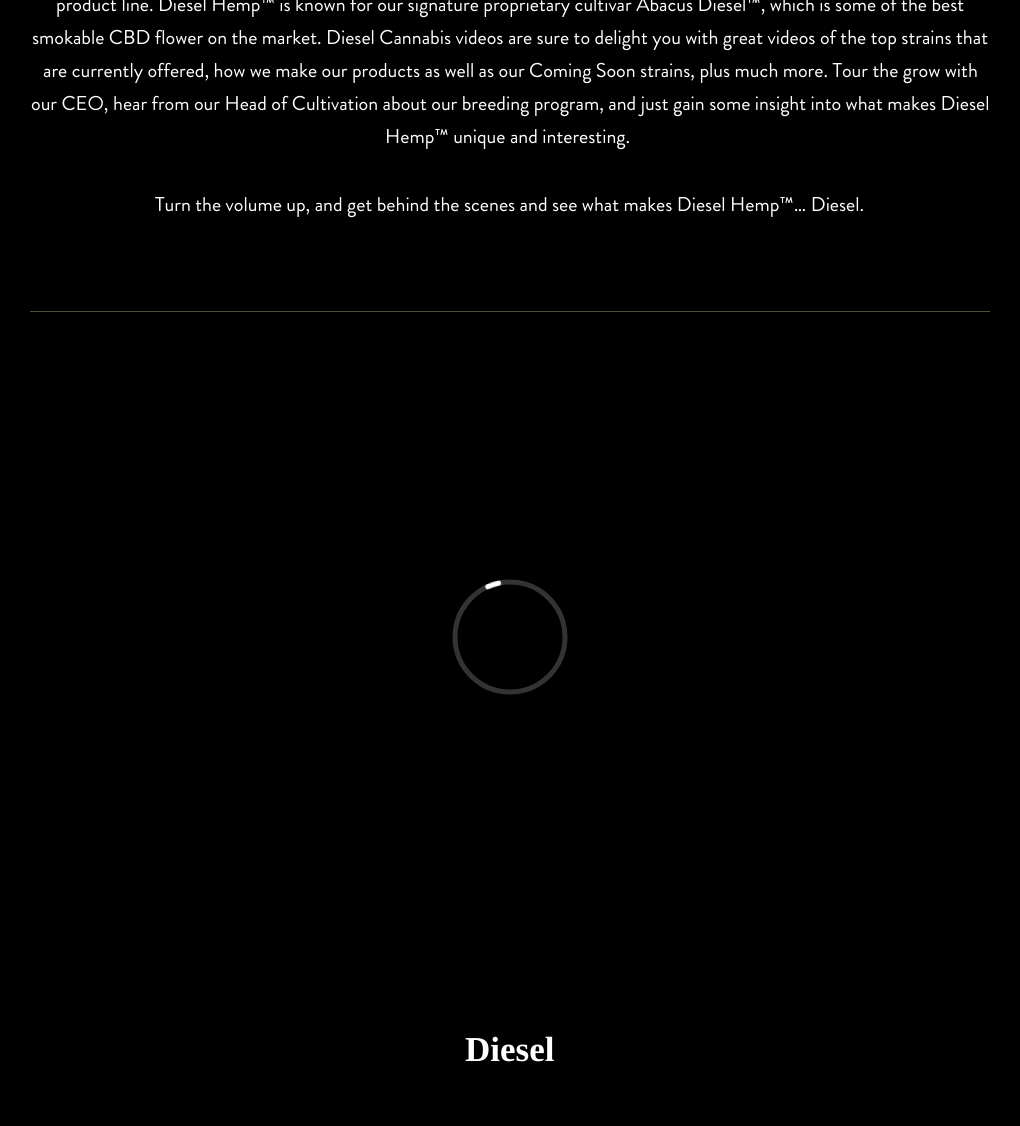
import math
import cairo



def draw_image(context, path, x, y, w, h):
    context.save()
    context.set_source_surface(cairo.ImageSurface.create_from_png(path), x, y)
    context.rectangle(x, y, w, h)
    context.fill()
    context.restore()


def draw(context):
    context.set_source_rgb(0, 0, 0)
    context.paint()
    context.set_source_rgb(78 / 255, 79 / 255, 54 / 255)
    context.rectangle(30, 311, 960, 1)
    context.fill()
    draw_image(context, "images/1.png", 452, 579, 116, 116)
    context.select_font_face("Brandon Grotesque")
    context.set_font_size(20)
    context.set_source_rgb(1, 1, 1)
    context.move_to(56, 11)
    context.show_text("product line. Diesel Hemp™ is known for our signature proprietary cultivar Abacus Diesel™, which is some of the best")
    context.move_to(32, 44)
    context.show_text("smokable CBD flower on the market. Diesel Cannabis videos are sure to delight you with great videos of the top strains that")
    context.move_to(43, 77)
    context.show_text("are currently offered, how we make our products as well as our Coming Soon strains, plus much more. Tour the grow with")
    context.move_to(31, 110)
    context.show_text("our CEO, hear from our Head of Cultivation about our breeding program, and just gain some insight into what makes Diesel")
    context.move_to(385, 143)
    context.show_text("Hemp™ unique and interesting.")
    context.move_to(155, 211)
    context.show_text("Turn the volume up, and get behind the scenes and see what makes Diesel Hemp™… Diesel.")
    context.select_font_face("Liberation Serif", cairo.FontSlant.NORMAL, cairo.FontWeight.BOLD)
    context.set_font_size(35)
    context.move_to(465, 1061)
    context.show_text("Diesel")


surface = cairo.ImageSurface(cairo.Format.RGB24, 1020, 1126)
context = cairo.Context(surface)
options = cairo.FontOptions()
options.set_hint_metrics(cairo.HintMetrics.OFF)
options.set_hint_style(cairo.HintStyle.NONE)
context.set_font_options(options)
context.set_miter_limit(4)
draw(context)
surface.write_to_png("out.png")
